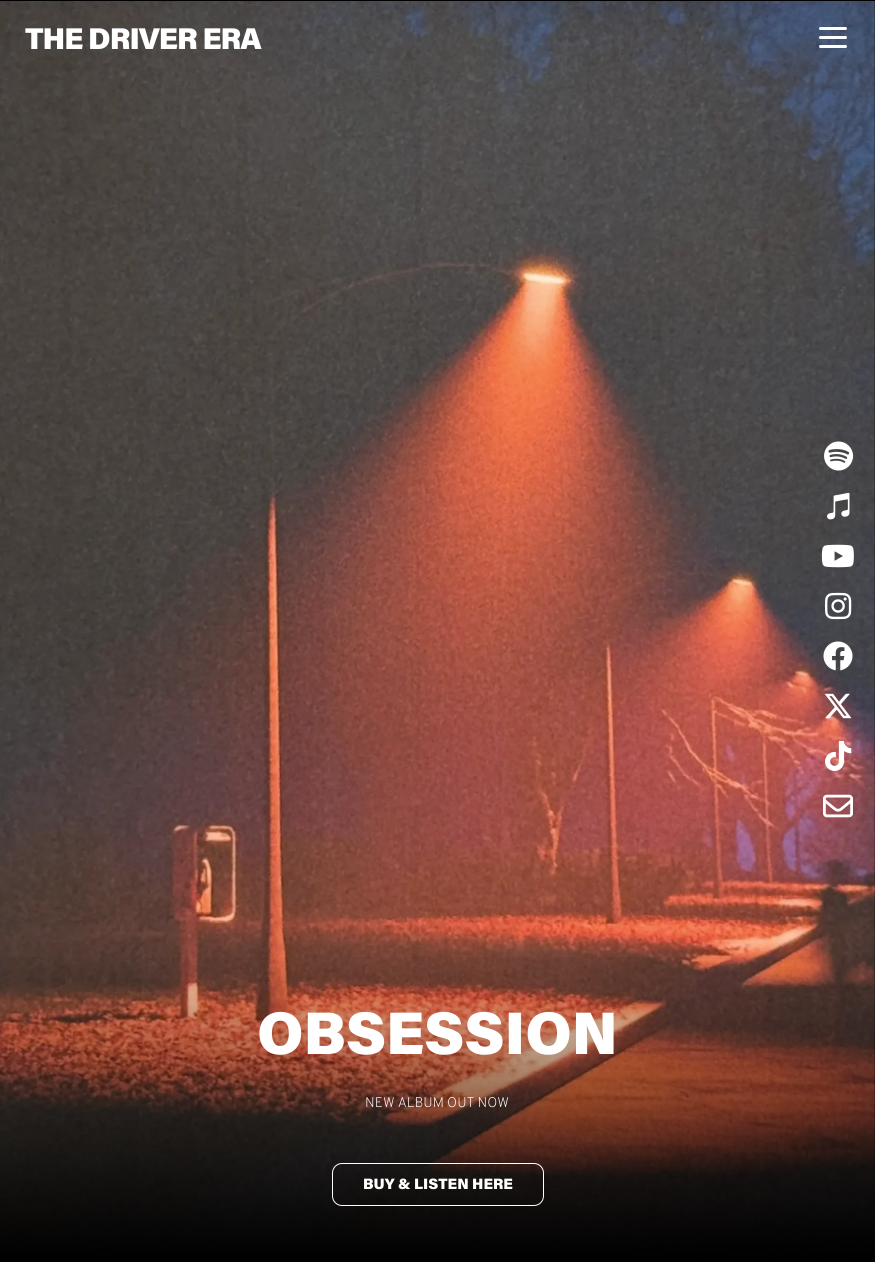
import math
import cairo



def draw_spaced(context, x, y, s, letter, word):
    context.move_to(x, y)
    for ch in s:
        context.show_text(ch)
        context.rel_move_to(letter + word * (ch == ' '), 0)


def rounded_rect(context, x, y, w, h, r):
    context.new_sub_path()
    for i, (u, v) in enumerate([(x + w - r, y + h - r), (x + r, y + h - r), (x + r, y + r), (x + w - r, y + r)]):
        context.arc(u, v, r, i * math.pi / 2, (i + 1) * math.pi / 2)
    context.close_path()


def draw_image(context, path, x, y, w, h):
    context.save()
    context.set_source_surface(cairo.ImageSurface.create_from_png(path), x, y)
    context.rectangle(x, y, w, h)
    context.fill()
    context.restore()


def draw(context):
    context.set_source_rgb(0, 0, 0)
    context.paint()
    draw_image(context, "images/9.png", 0, 1, 875, 1260)
    context.set_source_rgb(1, 1, 1)
    rounded_rect(context, 819, 27, 28, 3, 1.5)
    context.fill()
    rounded_rect(context, 819, 36, 28, 3, 1.5)
    context.fill()
    rounded_rect(context, 819, 45, 28, 3, 1.5)
    context.fill()
    draw_image(context, "images/1.png", 824, 441, 30, 30)
    draw_image(context, "images/2.png", 827, 492, 23, 28)
    draw_image(context, "images/3.png", 821, 544, 33, 24)
    draw_image(context, "images/4.png", 825, 592, 27, 28)
    draw_image(context, "images/5.png", 823, 641, 30, 30)
    draw_image(context, "images/6.png", 824, 693, 28, 26)
    draw_image(context, "images/7.png", 825, 741, 27, 30)
    draw_image(context, "images/8.png", 823, 794, 30, 24)
    gradient = cairo.LinearGradient(438, 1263, 438, 948)
    gradient.add_color_stop_rgba(0, 0, 0, 0, 1)
    gradient.add_color_stop_rgba(0.49, 0, 0, 0, 0.4)
    gradient.add_color_stop_rgba(1, 0, 0, 0, 0)
    context.set_source(gradient)
    context.rectangle(0, 957, 875, 304)
    context.fill()
    rounded_rect(context, 332.5, 1163.5, 211, 42, 9.5)
    context.set_source_rgb(1, 1, 1)
    context.set_line_width(1)
    context.stroke()
    context.select_font_face("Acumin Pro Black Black")
    context.set_font_size(30)
    draw_spaced(context, 25, 49, "THE DRIVER ERA", -1, 0)
    context.set_font_size(60)
    context.move_to(257, 1054)
    context.show_text("OBSESSION")
    context.select_font_face("Overpass ExtraLight")
    context.set_font_size(14)
    context.move_to(365, 1107)
    context.show_text("NEW ALBUM OUT NOW")
    context.select_font_face("Acumin Pro Black Black")
    context.set_font_size(15)
    context.move_to(363, 1189)
    context.show_text("BUY & LISTEN HERE")


surface = cairo.ImageSurface(cairo.Format.RGB24, 875, 1262)
context = cairo.Context(surface)
options = cairo.FontOptions()
options.set_hint_metrics(cairo.HintMetrics.OFF)
options.set_hint_style(cairo.HintStyle.NONE)
context.set_font_options(options)
context.set_miter_limit(4)
draw(context)
surface.write_to_png("out.png")
